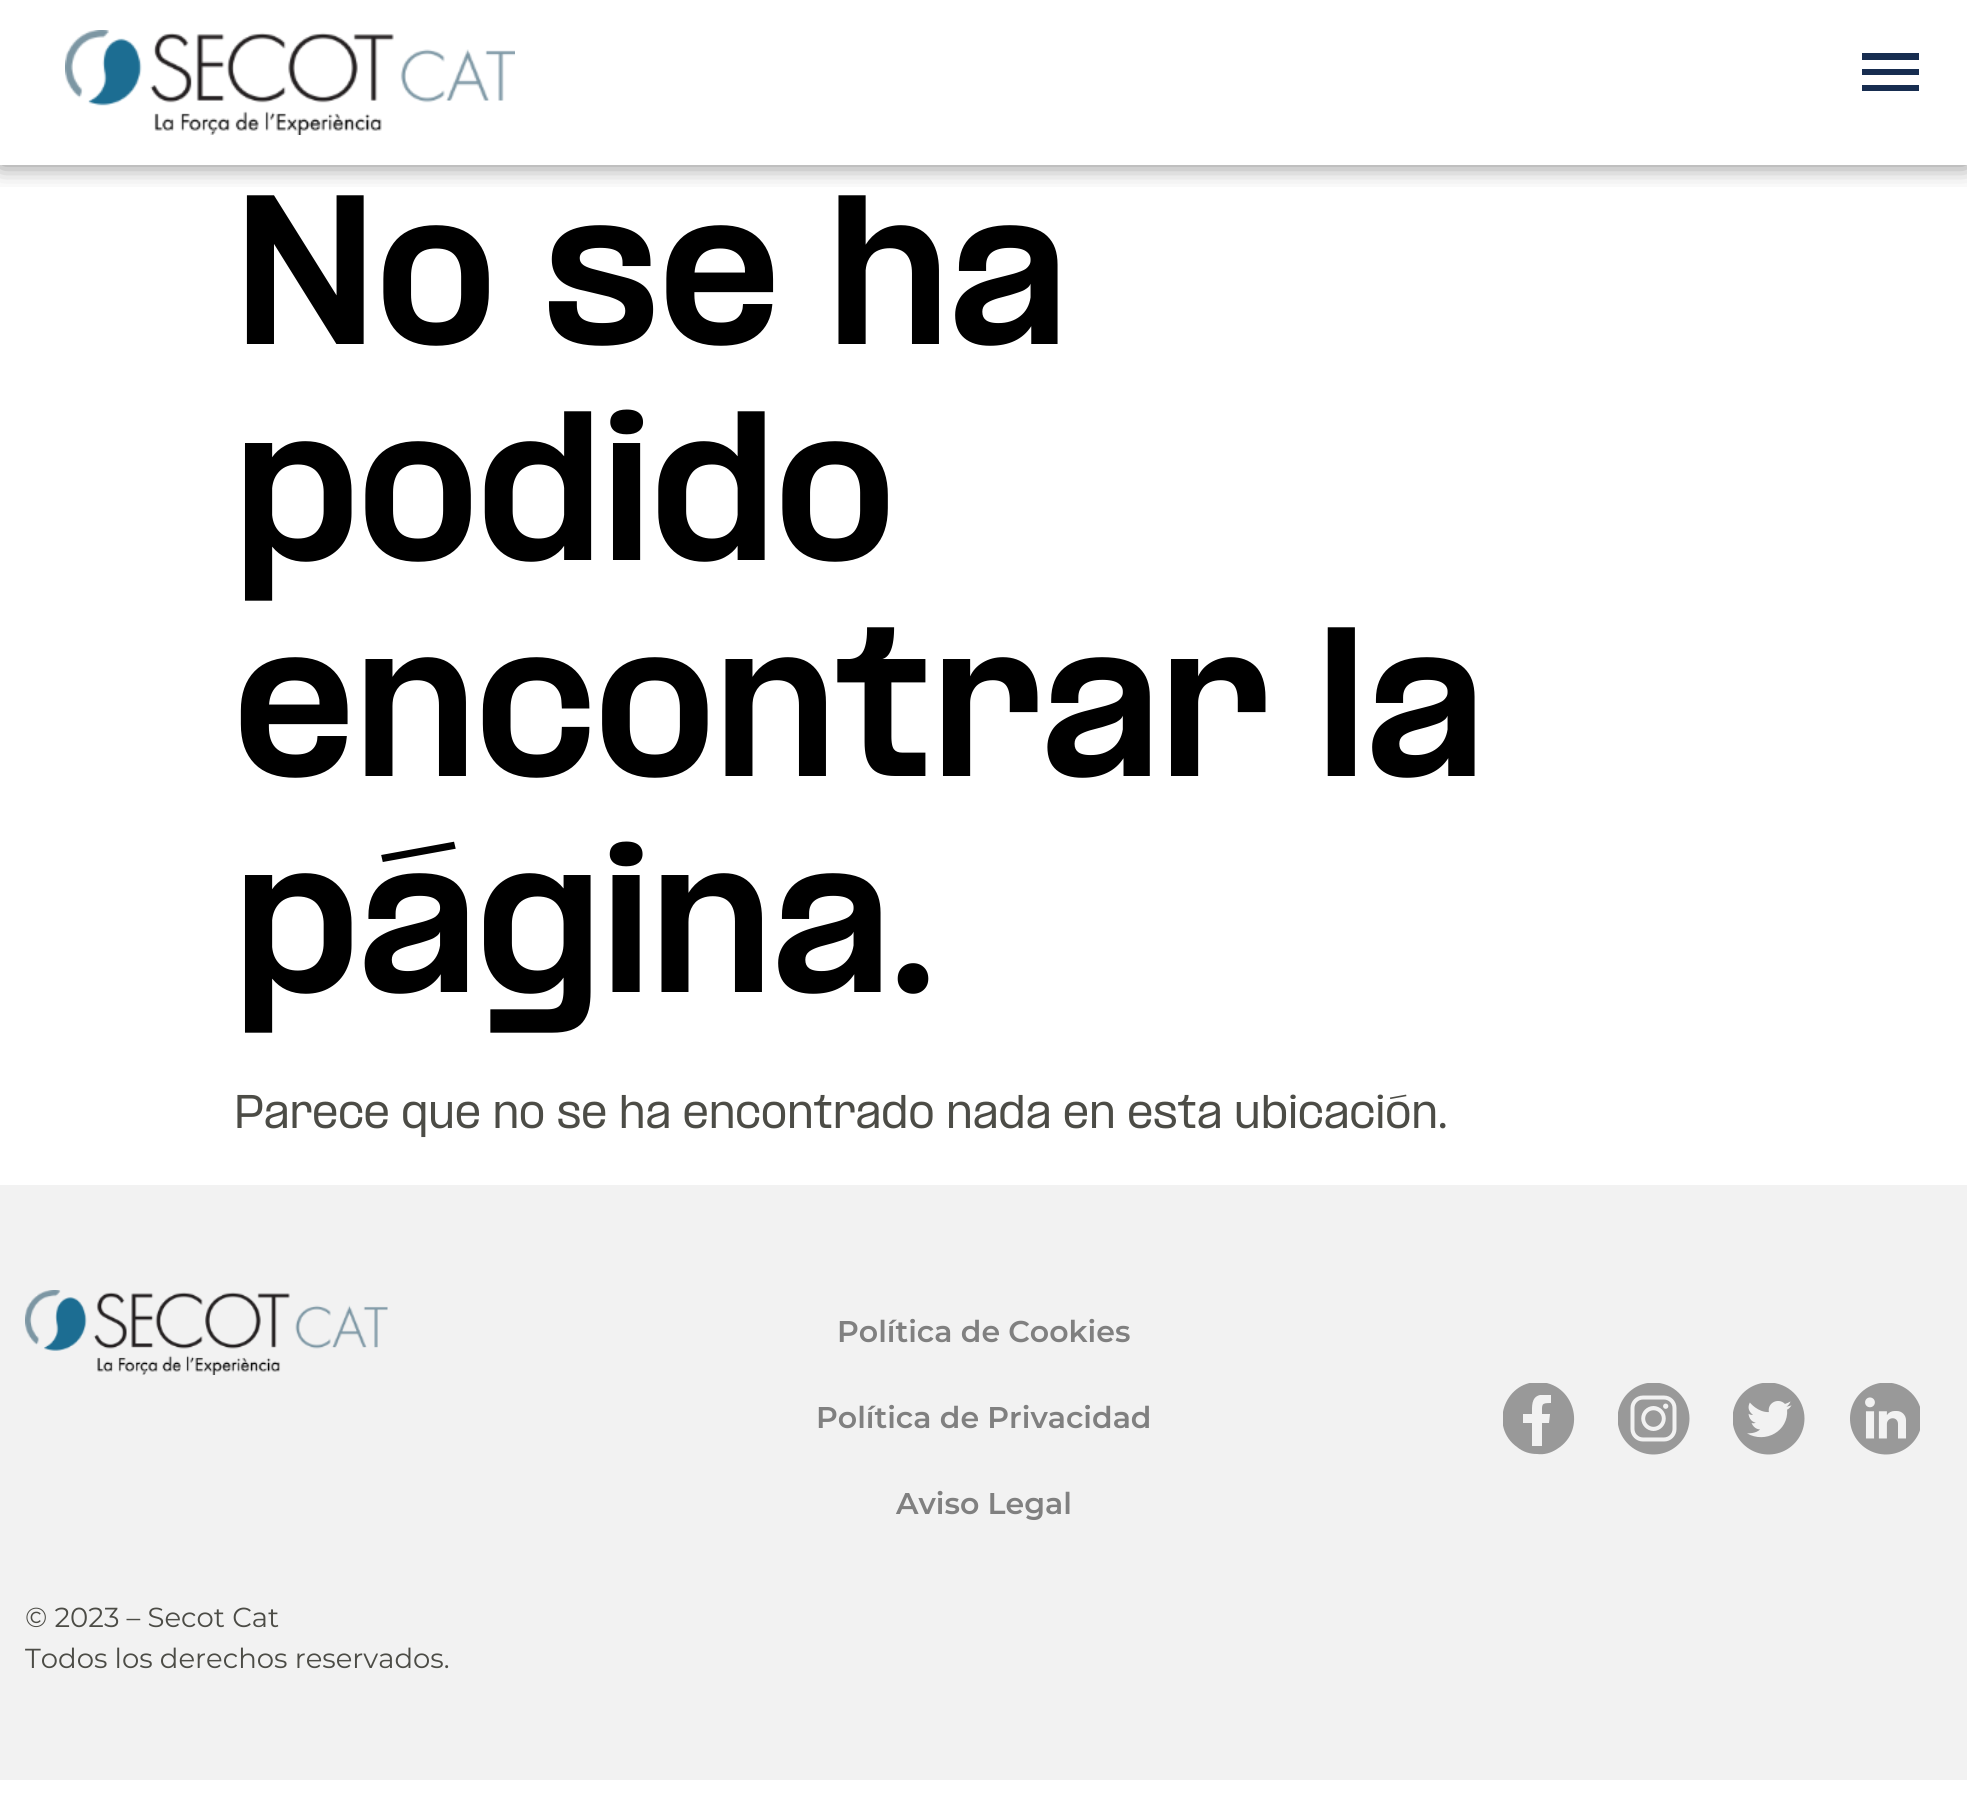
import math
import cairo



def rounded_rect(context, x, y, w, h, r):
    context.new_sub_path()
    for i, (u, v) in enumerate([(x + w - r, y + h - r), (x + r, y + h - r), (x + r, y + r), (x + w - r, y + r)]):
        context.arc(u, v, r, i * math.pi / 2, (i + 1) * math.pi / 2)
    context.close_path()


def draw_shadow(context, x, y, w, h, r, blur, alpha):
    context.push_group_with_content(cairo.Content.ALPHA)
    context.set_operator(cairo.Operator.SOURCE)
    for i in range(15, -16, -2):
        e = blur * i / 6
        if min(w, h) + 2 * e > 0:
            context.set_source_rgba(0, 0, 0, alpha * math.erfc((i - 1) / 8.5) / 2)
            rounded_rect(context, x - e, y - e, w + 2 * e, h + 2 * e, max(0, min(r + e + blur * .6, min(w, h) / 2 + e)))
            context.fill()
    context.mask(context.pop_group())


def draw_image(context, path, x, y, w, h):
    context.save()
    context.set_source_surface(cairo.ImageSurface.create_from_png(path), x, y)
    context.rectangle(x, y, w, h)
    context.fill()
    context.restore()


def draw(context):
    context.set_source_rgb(1, 1, 1)
    context.paint()
    context.save()
    context.rectangle(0, 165, 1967, 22)
    context.clip()
    context.set_source_rgb(0, 0, 0)
    draw_shadow(context, 0, 0, 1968, 165, 0, 12.5, 0.5)
    context.restore()
    draw_image(context, "images/1.png", 65, 30, 450, 105)
    context.set_source_rgb(23 / 255, 45 / 255, 80 / 255)
    context.new_path()
    context.move_to(1862, 91)
    context.line_to(1919, 91)
    context.line_to(1919, 85)
    context.line_to(1862, 85)
    context.close_path()
    context.move_to(1862, 75)
    context.line_to(1919, 75)
    context.line_to(1919, 69)
    context.line_to(1862, 69)
    context.close_path()
    context.move_to(1862, 53)
    context.line_to(1862, 60)
    context.line_to(1919, 60)
    context.line_to(1919, 53)
    context.close_path()
    context.fill()
    context.set_source_rgb(242 / 255, 242 / 255, 242 / 255)
    context.rectangle(0, 1185, 1967, 595)
    context.fill()
    draw_image(context, "images/2.png", 25, 1290, 363, 85)
    context.save()
    context.rectangle(1503, 1383, 72, 72)
    context.clip()
    context.set_source_rgb(153 / 255, 153 / 255, 153 / 255)
    context.set_fill_rule(cairo.FillRule.EVEN_ODD)
    context.new_path()
    context.move_to(1538, 1382)
    context.curve_to(1504, 1382, 1489, 1427, 1517, 1447)
    context.curve_to(1523, 1452, 1530, 1454, 1537, 1454)
    context.curve_to(1544, 1455, 1551, 1453, 1557, 1449)
    context.curve_to(1588, 1430, 1574, 1382, 1538, 1382)
    context.close_path()
    context.move_to(1551, 1403)
    context.curve_to(1541, 1403, 1542, 1404, 1542, 1414)
    context.line_to(1550, 1414)
    context.line_to(1549, 1423)
    context.line_to(1542, 1423)
    context.line_to(1542, 1446)
    context.line_to(1532, 1446)
    context.line_to(1532, 1423)
    context.line_to(1523, 1423)
    context.line_to(1523, 1414)
    context.line_to(1532, 1414)
    context.curve_to(1532, 1407, 1531, 1397, 1540, 1395)
    context.line_to(1551, 1395)
    context.close_path()
    context.fill()
    context.restore()
    draw_image(context, "images/3.png", 1618, 1383, 72, 72)
    draw_image(context, "images/4.png", 1733, 1383, 72, 72)
    draw_image(context, "images/5.png", 1850, 1383, 70, 72)
    context.select_font_face("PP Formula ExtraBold")
    context.set_font_size(180)
    context.set_source_rgb(0, 0, 0)
    context.move_to(234, 344)
    context.show_text("No se ha")
    context.move_to(234, 560)
    context.show_text("podido")
    context.move_to(234, 776)
    context.show_text("encontrar la")
    context.move_to(234, 992)
    context.show_text("página.")
    context.select_font_face("PP Formula Medium")
    context.set_font_size(40)
    context.set_source_rgb(76 / 255, 76 / 255, 70 / 255)
    context.move_to(234, 1128)
    context.show_text("Parece que no se ha encontrado nada en esta ubicación.")
    context.select_font_face("Montserrat SemiBold")
    context.set_font_size(30)
    context.set_source_rgb(128 / 255, 128 / 255, 128 / 255)
    context.move_to(837, 1342)
    context.show_text("Política de Cookies")
    context.move_to(816, 1428)
    context.show_text("Política de Privacidad")
    context.move_to(896, 1514)
    context.show_text("Aviso Legal")
    context.select_font_face("Montserrat")
    context.set_font_size(27.5)
    context.set_source_rgb(76 / 255, 76 / 255, 70 / 255)
    context.move_to(25, 1627)
    context.show_text("© 2023 – Secot Cat")
    context.move_to(25, 1668)
    context.show_text("Todos los derechos reservados.")


surface = cairo.ImageSurface(cairo.Format.RGB24, 1967, 1805)
context = cairo.Context(surface)
options = cairo.FontOptions()
options.set_hint_metrics(cairo.HintMetrics.OFF)
options.set_hint_style(cairo.HintStyle.NONE)
context.set_font_options(options)
context.set_miter_limit(4)
draw(context)
surface.write_to_png("out.png")
